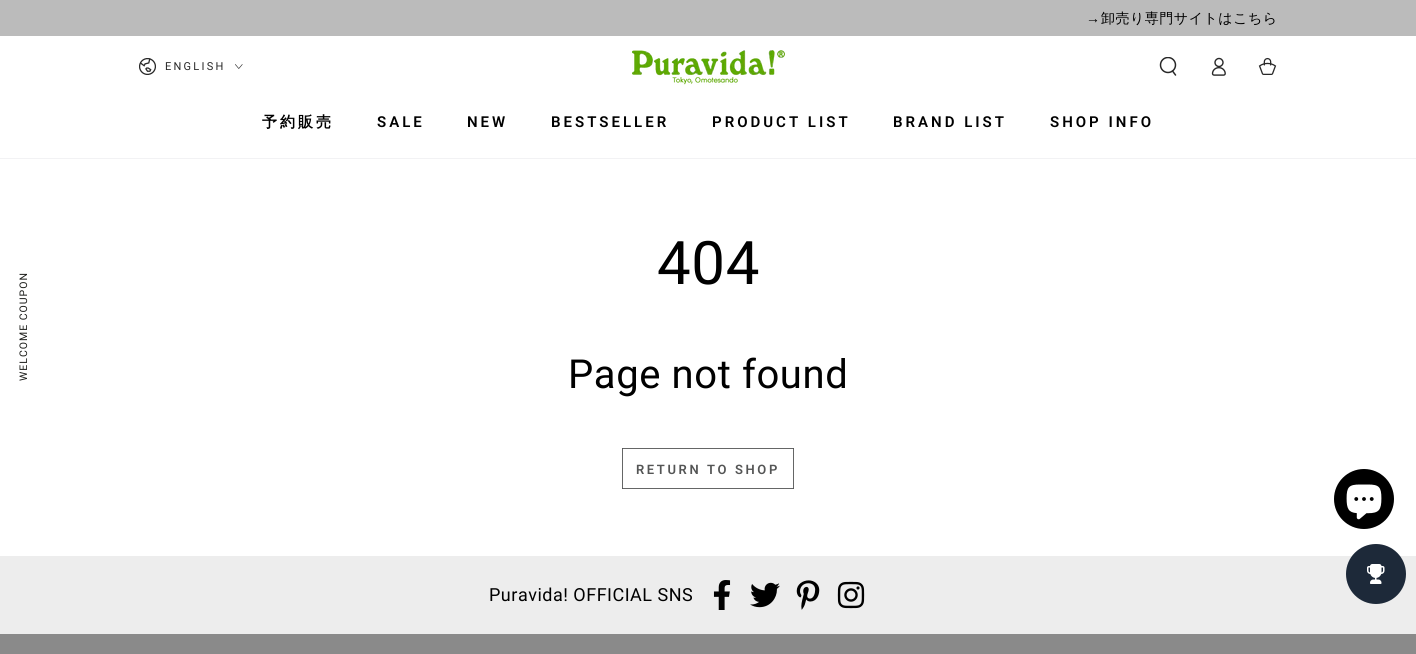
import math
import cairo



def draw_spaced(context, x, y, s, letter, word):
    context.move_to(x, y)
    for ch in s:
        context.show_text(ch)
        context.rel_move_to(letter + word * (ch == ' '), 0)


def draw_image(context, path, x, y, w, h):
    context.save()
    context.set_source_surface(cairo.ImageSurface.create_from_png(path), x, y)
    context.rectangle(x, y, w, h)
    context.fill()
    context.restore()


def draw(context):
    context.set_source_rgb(1, 1, 1)
    context.paint()
    context.set_source_rgb(187 / 255, 187 / 255, 187 / 255)
    context.rectangle(0, 0, 1416, 36)
    context.fill()
    context.set_source_rgb(242 / 255, 242 / 255, 244 / 255)
    context.rectangle(0, 158, 1416, 1)
    context.fill()
    draw_image(context, "images/1.png", 139, 58, 17, 17)
    draw_image(context, "images/2.png", 235, 64, 8, 5)
    draw_image(context, "images/3.png", 632, 50, 153, 35)
    context.save()
    context.rectangle(1159, 57, 19, 19)
    context.clip()
    context.arc(1168, 65, 7.5, 0, 2 * math.pi)
    context.set_source_rgb(40 / 255, 40 / 255, 40 / 255)
    context.set_line_width(1.5)
    context.stroke()
    context.restore()
    context.new_path()
    context.move_to(1172.5, 71)
    context.line_to(1175.5, 75)
    context.set_source_rgb(40 / 255, 40 / 255, 40 / 255)
    context.set_line_width(1.5)
    context.set_line_cap(cairo.LineCap.ROUND)
    context.stroke()
    draw_image(context, "images/4.png", 1211, 57, 15, 19)
    draw_image(context, "images/5.png", 1258, 57, 19, 18)
    context.rectangle(622.45, 448.45, 171.1, 40.1)
    context.set_source_rgb(84 / 255, 85 / 255, 85 / 255)
    context.set_line_width(0.9)
    context.set_line_cap(cairo.LineCap.BUTT)
    context.stroke()
    context.set_source_rgb(138 / 255, 138 / 255, 138 / 255)
    context.rectangle(0, 634, 1416, 20)
    context.fill()
    context.set_source_rgb(237 / 255, 237 / 255, 237 / 255)
    context.rectangle(0, 556, 1416, 78)
    context.fill()
    draw_image(context, "images/6.png", 713, 580, 18, 30)
    draw_image(context, "images/7.png", 750, 582, 30, 26)
    draw_image(context, "images/8.png", 796, 580, 24, 30)
    draw_image(context, "images/9.png", 837, 581, 28, 28)
    context.set_source_rgb(0, 0, 0)
    context.arc(1364, 499, 30, 0, 2 * math.pi)
    context.fill()
    draw_image(context, "images/10.png", 1346, 484, 36, 36)
    context.set_source_rgb(29 / 255, 41 / 255, 57 / 255)
    context.arc(1376, 574, 30, 0, 2 * math.pi)
    context.fill()
    draw_image(context, "images/11.png", 1367, 564, 18, 20)
    context.select_font_face("Roboto")
    context.set_font_size(10.5)
    context.set_source_rgb(26 / 255, 27 / 255, 24 / 255)
    context.save()
    context.translate(27, 381)
    context.rotate(-90 * math.pi / 180)
    draw_spaced(context, 0, 0, "WELCOME COUPON", 1, 0)
    context.restore()
    context.select_font_face("Liberation Sans")
    context.set_font_size(14)
    context.set_source_rgb(0, 0, 0)
    draw_spaced(context, 1086, 23, "→", 0.5, 0)
    context.select_font_face("WenQuanYi Zen Hei Medium")
    draw_spaced(context, 1101, 23, "卸売り専門サイトはこちら", 0.5, 0)
    context.select_font_face("Roboto")
    context.set_font_size(11)
    context.set_source_rgb(40 / 255, 40 / 255, 40 / 255)
    draw_spaced(context, 165, 70, "ENGLISH", 2.25, 0)
    context.select_font_face("WenQuanYi Zen Hei", cairo.FontSlant.NORMAL, cairo.FontWeight.BOLD)
    context.set_font_size(15)
    context.set_source_rgb(0, 0, 0)
    draw_spaced(context, 262, 127, "予約販売", 3, 0)
    context.select_font_face("Roboto SemiBold")
    draw_spaced(context, 377, 127, "SALE", 3, 0)
    draw_spaced(context, 467, 127, "NEW", 3, 0)
    draw_spaced(context, 551, 127, "BESTSELLER", 3, 0)
    draw_spaced(context, 712, 127, "PRODUCT LIST", 3, 0)
    draw_spaced(context, 893, 127, "BRAND LIST", 3, 0)
    draw_spaced(context, 1050, 127, "SHOP INFO", 3, 0)
    context.select_font_face("Roboto")
    context.set_font_size(60)
    draw_spaced(context, 657, 284, "404", 0.6, 0)
    context.set_font_size(40)
    draw_spaced(context, 568, 388, "Page not found", 0.6, 0)
    context.select_font_face("Roboto SemiBold")
    context.set_font_size(13)
    context.set_source_rgb(84 / 255, 85 / 255, 85 / 255)
    draw_spaced(context, 636, 474, "RETURN TO SHOP", 2.6, 0)
    context.select_font_face("Roboto")
    context.set_font_size(18)
    context.set_source_rgb(0, 0, 0)
    draw_spaced(context, 489, 601, "Puravida! OFFICIAL SNS", 0.5, 0)


surface = cairo.ImageSurface(cairo.Format.RGB24, 1416, 654)
context = cairo.Context(surface)
options = cairo.FontOptions()
options.set_hint_metrics(cairo.HintMetrics.OFF)
options.set_hint_style(cairo.HintStyle.NONE)
context.set_font_options(options)
context.set_miter_limit(4)
draw(context)
surface.write_to_png("out.png")
